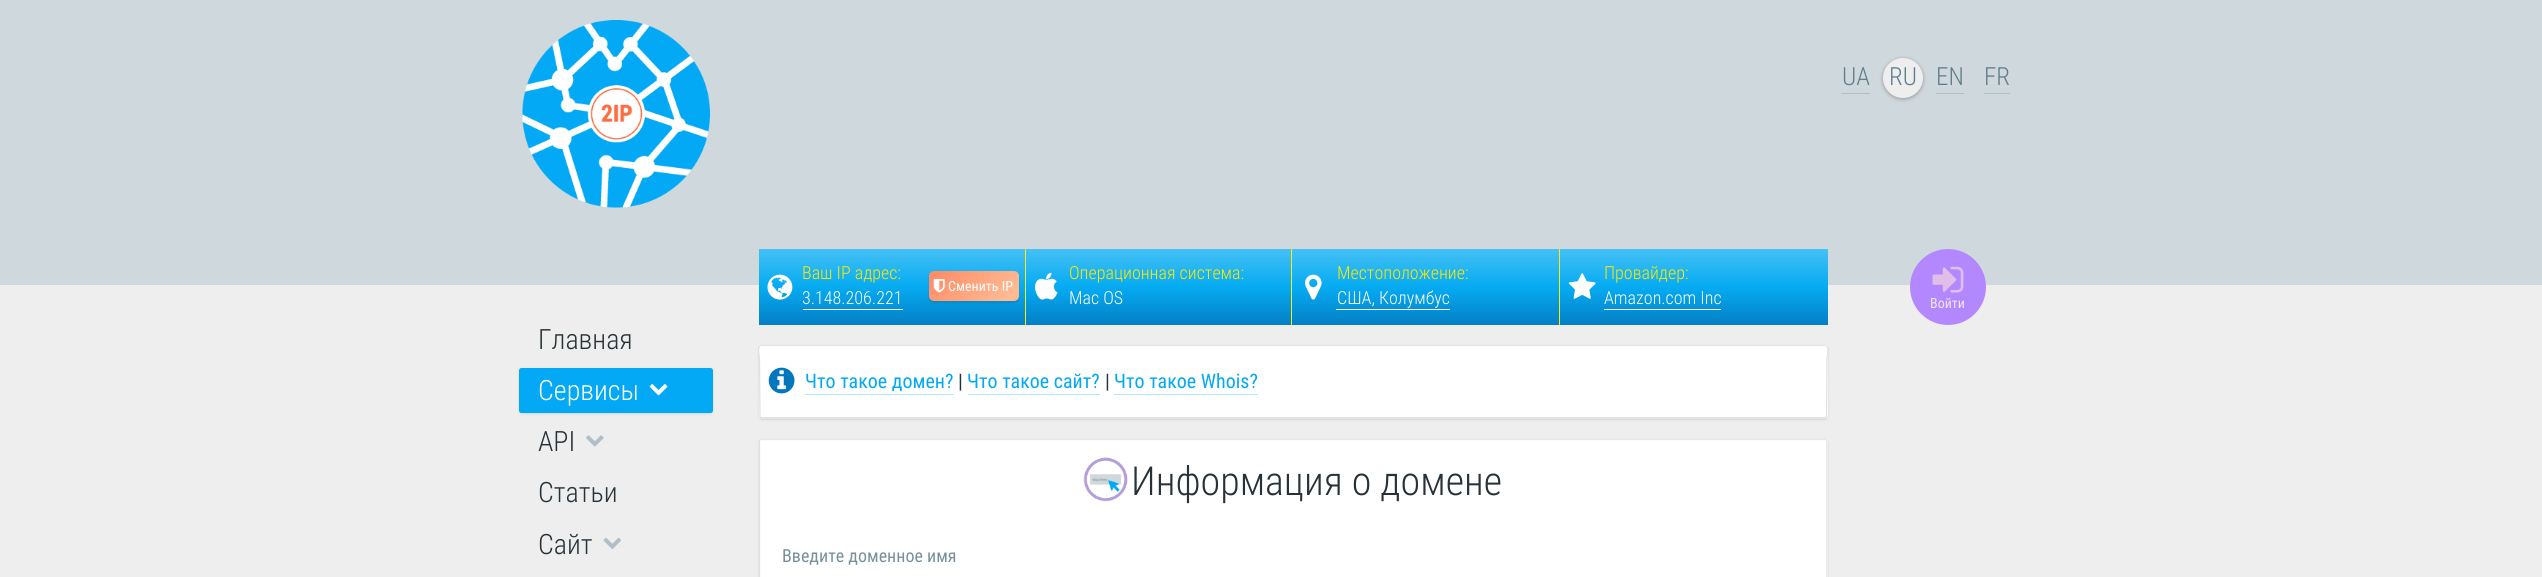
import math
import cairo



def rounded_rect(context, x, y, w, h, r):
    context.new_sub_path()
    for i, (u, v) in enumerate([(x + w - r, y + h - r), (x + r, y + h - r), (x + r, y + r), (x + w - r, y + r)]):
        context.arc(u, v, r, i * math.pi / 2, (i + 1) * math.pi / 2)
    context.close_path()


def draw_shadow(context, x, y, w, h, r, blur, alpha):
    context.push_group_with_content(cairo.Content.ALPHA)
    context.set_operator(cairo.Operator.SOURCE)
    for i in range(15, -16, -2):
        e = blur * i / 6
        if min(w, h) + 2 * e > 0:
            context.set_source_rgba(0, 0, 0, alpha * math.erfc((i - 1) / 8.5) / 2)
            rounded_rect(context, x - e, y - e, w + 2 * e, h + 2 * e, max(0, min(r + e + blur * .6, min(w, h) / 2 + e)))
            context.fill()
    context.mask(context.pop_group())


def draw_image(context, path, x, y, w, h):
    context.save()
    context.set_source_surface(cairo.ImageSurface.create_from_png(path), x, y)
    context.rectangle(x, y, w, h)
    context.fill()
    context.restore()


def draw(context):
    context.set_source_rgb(238 / 255, 238 / 255, 238 / 255)
    context.paint()
    context.set_source_rgb(207 / 255, 216 / 255, 220 / 255)
    context.rectangle(0, 0, 2542, 285)
    context.fill()
    draw_image(context, "images/1.png", 522, 20, 188, 188)
    context.set_source_rgb(176 / 255, 190 / 255, 197 / 255)
    context.rectangle(1841, 93, 29, 1)
    context.fill()
    context.set_source_rgb(0, 0, 0)
    draw_shadow(context, 1883, 59, 40, 40, 20, 2, 0.3)
    context.set_source_rgb(238 / 255, 238 / 255, 238 / 255)
    context.arc(1903, 78, 20, 0, 2 * math.pi)
    context.fill()
    context.set_source_rgb(176 / 255, 190 / 255, 197 / 255)
    context.rectangle(1936, 93, 28, 1)
    context.fill()
    context.rectangle(1984, 93, 26, 1)
    context.fill()
    gradient = cairo.LinearGradient(1293, 325, 1293, 249)
    gradient.add_color_stop_rgba(0, 4 / 255, 127 / 255, 196 / 255, 1)
    gradient.add_color_stop_rgba(0.5, 5 / 255, 171 / 255, 242 / 255, 1)
    gradient.add_color_stop_rgba(1, 69 / 255, 192 / 255, 245 / 255, 1)
    context.set_source(gradient)
    context.rectangle(759, 249, 1069, 76)
    context.fill()
    context.set_source_rgb(1, 234 / 255, 0)
    context.rectangle(1025, 249, 1, 76)
    context.fill()
    draw_image(context, "images/2.png", 767, 274, 26, 26)
    context.set_source_rgb(0, 0, 0)
    draw_shadow(context, 929, 273, 90, 30, 5, 1, 0.1)
    gradient = cairo.LinearGradient(966, 234, 1071, 339)
    gradient.add_color_stop_rgba(0, 1, 138 / 255, 101 / 255, 1)
    gradient.add_color_stop_rgba(0.51, 1, 187 / 255, 147 / 255, 1)
    gradient.add_color_stop_rgba(1, 1, 138 / 255, 101 / 255, 1)
    context.set_source(gradient)
    rounded_rect(context, 929, 271, 90, 30, 5)
    context.fill()
    draw_image(context, "images/3.png", 933, 279, 12, 14)
    context.set_source_rgb(1, 1, 1)
    context.rectangle(803, 309, 100, 1)
    context.fill()
    context.set_source_rgb(1, 234 / 255, 0)
    context.rectangle(1291, 249, 1, 76)
    context.fill()
    draw_image(context, "images/4.png", 1035, 272, 23, 28)
    context.rectangle(1559, 249, 1, 76)
    context.fill()
    draw_image(context, "images/5.png", 1305, 274, 17, 26)
    context.set_source_rgb(1, 1, 1)
    context.rectangle(1336, 309, 114, 1)
    context.fill()
    draw_image(context, "images/6.png", 1568, 273, 28, 26)
    context.rectangle(1604, 309, 117, 1)
    context.fill()
    context.set_source_rgb(179 / 255, 136 / 255, 1)
    context.arc(1948, 287, 38, 0, 2 * math.pi)
    context.fill()
    draw_image(context, "images/7.png", 1932, 266, 32, 27)
    context.set_source_rgb(0, 0, 0)
    draw_shadow(context, 519, 369, 194, 45, 2.5, 1, 0.1)
    context.set_source_rgb(3 / 255, 169 / 255, 244 / 255)
    rounded_rect(context, 519, 368, 194, 45, 2.5)
    context.fill()
    draw_image(context, "images/8.png", 649, 384, 19, 12)
    draw_image(context, "images/9.png", 586, 435, 18, 12)
    draw_image(context, "images/10.png", 603, 537, 18, 12)
    context.set_source_rgb(0, 0, 0)
    draw_shadow(context, 759, 346, 1069, 74, 2.5, 1, 0.1)
    context.set_source_rgb(1, 1, 1)
    rounded_rect(context, 759, 345, 1069, 74, 2.5)
    context.fill()
    context.new_path()
    context.move_to(760, 346)
    context.line_to(761, 345.5)
    context.line_to(1825, 345.5)
    context.line_to(1826.5, 346)
    context.set_source_rgb(229 / 255, 230 / 255, 233 / 255)
    context.set_line_width(1.2)
    context.stroke()
    context.new_path()
    context.move_to(1826.5, 346)
    context.curve_to(1829.5, 349, 1827, 354.5, 1827, 359)
    context.line_to(1826.5, 417.5)
    context.set_source_rgb(223 / 255, 224 / 255, 228 / 255)
    context.stroke()
    context.new_path()
    context.move_to(1826.5, 417.5)
    context.line_to(1825, 418)
    context.line_to(761, 418)
    context.line_to(760, 417.5)
    context.set_source_rgb(208 / 255, 209 / 255, 213 / 255)
    context.stroke()
    context.new_path()
    context.move_to(760, 417.5)
    context.line_to(759.5, 359)
    context.curve_to(759.5, 354.5, 757, 349, 760, 346)
    context.set_source_rgb(223 / 255, 224 / 255, 228 / 255)
    context.stroke()
    draw_image(context, "images/11.png", 768, 367, 27, 27)
    context.set_source_rgb(179 / 255, 229 / 255, 252 / 255)
    context.rectangle(805, 394, 149, 1)
    context.fill()
    context.rectangle(968, 394, 132, 1)
    context.fill()
    context.rectangle(1114, 394, 144, 1)
    context.fill()
    context.set_source_rgb(0, 0, 0)
    draw_shadow(context, 759, 440, 1069, 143, 2.5, 1, 0.1)
    context.set_source_rgb(1, 1, 1)
    rounded_rect(context, 759, 439, 1069, 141, 2.5)
    context.fill()
    context.new_path()
    context.move_to(760, 440)
    context.line_to(761, 439.5)
    context.line_to(1825, 439.5)
    context.line_to(1826.5, 440)
    context.set_source_rgb(229 / 255, 230 / 255, 233 / 255)
    context.stroke()
    context.new_path()
    context.move_to(1826.5, 440)
    context.line_to(1827, 441)
    context.line_to(1827, 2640)
    context.line_to(1826.5, 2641.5)
    context.set_source_rgb(223 / 255, 224 / 255, 228 / 255)
    context.stroke()
    context.new_path()
    context.move_to(760, 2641.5)
    context.line_to(759.5, 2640)
    context.line_to(759.5, 441)
    context.line_to(760, 440)
    context.stroke()
    draw_image(context, "images/12.png", 1083, 457, 45, 45)
    context.select_font_face("Roboto Condensed Light")
    context.set_font_size(25)
    context.set_source_rgb(96 / 255, 125 / 255, 139 / 255)
    context.move_to(1842, 85)
    context.show_text("UA")
    context.move_to(1889, 85)
    context.show_text("RU")
    context.move_to(1936, 85)
    context.show_text("EN")
    context.move_to(1984, 85)
    context.show_text("FR")
    context.set_font_size(18)
    context.set_source_rgb(1, 234 / 255, 0)
    context.move_to(802, 279)
    context.show_text("Ваш IP адрес:")
    context.select_font_face("Roboto Condensed")
    context.set_font_size(14)
    context.set_source_rgb(1, 1, 1)
    context.move_to(948, 291)
    context.show_text("Сменить IP")
    context.select_font_face("Roboto Condensed Light")
    context.set_font_size(18)
    context.move_to(802, 304)
    context.show_text("3.148.206.221")
    context.set_source_rgb(1, 234 / 255, 0)
    context.move_to(1069, 279)
    context.show_text("Операционная система:")
    context.set_source_rgb(1, 1, 1)
    context.move_to(1069, 304)
    context.show_text("Mac OS")
    context.set_source_rgb(1, 234 / 255, 0)
    context.move_to(1337, 279)
    context.show_text("Местоположение:")
    context.set_source_rgb(1, 1, 1)
    context.move_to(1337, 304)
    context.show_text("США, Колумбус")
    context.set_source_rgb(1, 234 / 255, 0)
    context.move_to(1604, 279)
    context.show_text("Провайдер:")
    context.set_source_rgb(1, 1, 1)
    context.move_to(1604, 304)
    context.show_text("Amazon.com Inc")
    context.select_font_face("Roboto Condensed")
    context.set_font_size(14)
    context.set_source_rgb(243 / 255, 229 / 255, 245 / 255)
    context.move_to(1930, 308)
    context.show_text("Войти")
    context.select_font_face("Roboto Condensed Light")
    context.set_font_size(28)
    context.set_source_rgb(38 / 255, 50 / 255, 56 / 255)
    context.move_to(538, 349)
    context.show_text("Главная")
    context.set_source_rgb(1, 1, 1)
    context.move_to(538, 400)
    context.show_text("Сервисы")
    context.set_source_rgb(38 / 255, 50 / 255, 56 / 255)
    context.move_to(538, 451)
    context.show_text("API")
    context.move_to(538, 502)
    context.show_text("Статьи")
    context.move_to(538, 554)
    context.show_text("Сайт")
    context.select_font_face("Roboto Condensed")
    context.set_font_size(20)
    context.set_source_rgb(3 / 255, 169 / 255, 244 / 255)
    context.move_to(805, 388)
    context.show_text("Что такое домен?")
    context.set_source_rgb(38 / 255, 50 / 255, 56 / 255)
    context.move_to(958, 388)
    context.show_text("|")
    context.set_source_rgb(3 / 255, 169 / 255, 244 / 255)
    context.move_to(967, 388)
    context.show_text("Что такое сайт?")
    context.set_source_rgb(38 / 255, 50 / 255, 56 / 255)
    context.move_to(1105, 388)
    context.show_text("|")
    context.set_source_rgb(3 / 255, 169 / 255, 244 / 255)
    context.move_to(1114, 388)
    context.show_text("Что такое Whois?")
    context.select_font_face("Roboto Condensed Light")
    context.set_font_size(40)
    context.set_source_rgb(38 / 255, 50 / 255, 56 / 255)
    context.move_to(1131, 495)
    context.show_text("Информация о домене")
    context.select_font_face("Roboto Condensed")
    context.set_font_size(18)
    context.set_source_rgb(120 / 255, 144 / 255, 156 / 255)
    context.move_to(782, 562)
    context.show_text("Введите доменное имя")


surface = cairo.ImageSurface(cairo.Format.RGB24, 2542, 577)
context = cairo.Context(surface)
options = cairo.FontOptions()
options.set_hint_metrics(cairo.HintMetrics.OFF)
options.set_hint_style(cairo.HintStyle.NONE)
context.set_font_options(options)
context.set_miter_limit(4)
draw(context)
surface.write_to_png("out.png")
